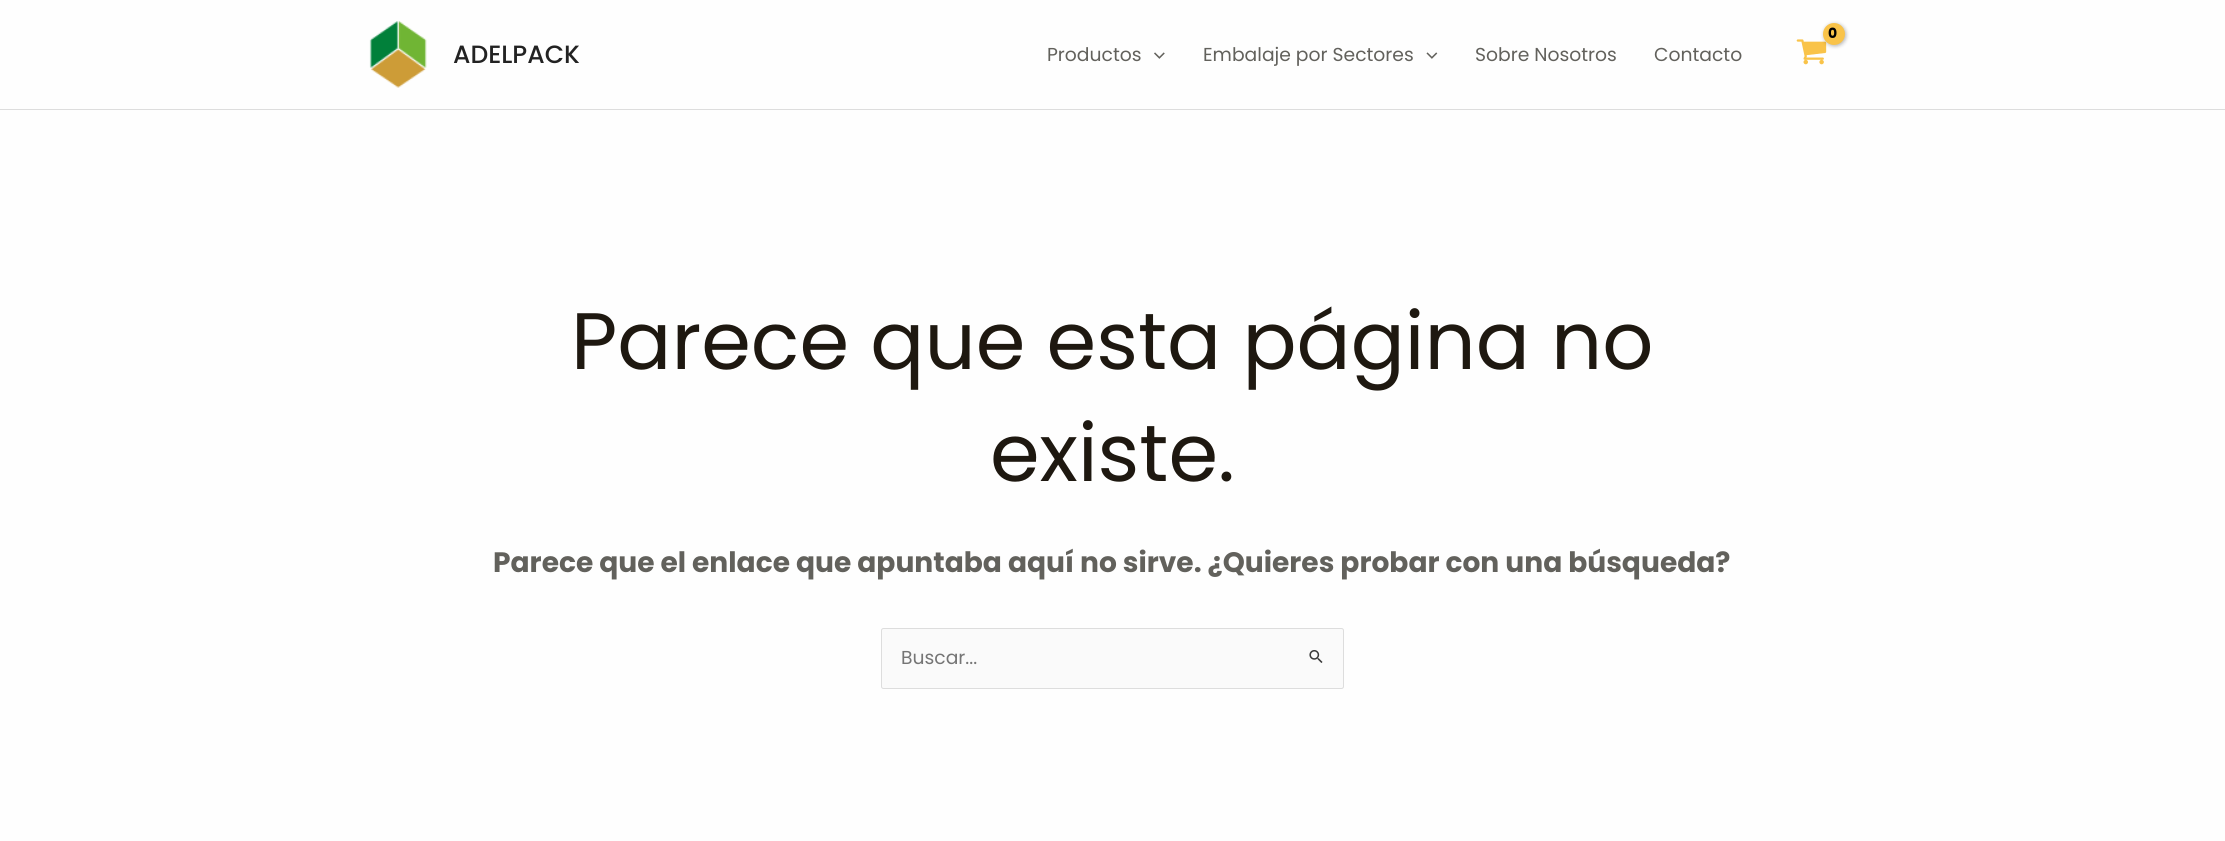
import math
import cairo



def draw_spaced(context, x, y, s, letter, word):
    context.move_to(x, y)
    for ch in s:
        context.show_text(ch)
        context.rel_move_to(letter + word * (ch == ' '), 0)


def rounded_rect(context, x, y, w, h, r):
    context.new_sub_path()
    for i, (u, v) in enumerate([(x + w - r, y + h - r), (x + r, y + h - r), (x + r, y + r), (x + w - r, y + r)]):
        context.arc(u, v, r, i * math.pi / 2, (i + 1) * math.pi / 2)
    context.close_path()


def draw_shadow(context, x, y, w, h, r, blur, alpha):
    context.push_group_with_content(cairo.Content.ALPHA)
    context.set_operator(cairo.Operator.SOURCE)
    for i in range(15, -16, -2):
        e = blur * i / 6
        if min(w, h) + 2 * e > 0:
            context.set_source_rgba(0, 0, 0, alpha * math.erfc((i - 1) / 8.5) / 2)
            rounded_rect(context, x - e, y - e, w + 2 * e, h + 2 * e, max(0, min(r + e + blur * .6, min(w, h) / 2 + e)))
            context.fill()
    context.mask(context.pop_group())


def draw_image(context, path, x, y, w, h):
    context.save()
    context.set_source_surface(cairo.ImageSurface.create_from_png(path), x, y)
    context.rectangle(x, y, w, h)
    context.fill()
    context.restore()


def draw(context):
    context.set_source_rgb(254 / 255, 254 / 255, 254 / 255)
    context.paint()
    context.set_source_rgb(221 / 255, 221 / 255, 221 / 255)
    context.rectangle(0, 109, 2225, 1)
    context.fill()
    draw_image(context, "images/1.png", 369, 21, 58, 67)
    draw_image(context, "images/2.png", 1796, 39, 31, 26)
    context.set_source_rgb(0, 0, 0)
    draw_shadow(context, 1824, 24, 22, 22, 11, 2, 0.3)
    context.set_source_rgb(249 / 255, 195 / 255, 73 / 255)
    context.arc(1834, 34, 11, 0, 2 * math.pi)
    context.fill()
    draw_image(context, "images/3.png", 1154, 52, 11, 7)
    draw_image(context, "images/4.png", 1426, 52, 12, 7)
    context.set_source_rgb(250 / 255, 250 / 255, 250 / 255)
    rounded_rect(context, 881.5, 628.5, 462, 60, 2)
    context.fill_preserve()
    context.set_source_rgb(221 / 255, 221 / 255, 221 / 255)
    context.set_line_width(1)
    context.stroke()
    draw_image(context, "images/5.png", 1309, 650, 14, 13)
    context.select_font_face("Poppins Medium")
    context.set_font_size(25)
    context.set_source_rgb(34 / 255, 34 / 255, 34 / 255)
    context.move_to(453, 63)
    context.show_text("ADELPACK")
    context.select_font_face("Poppins", cairo.FontSlant.NORMAL, cairo.FontWeight.BOLD)
    context.set_font_size(14)
    context.set_source_rgb(0, 0, 0)
    draw_spaced(context, 1828, 38, "0", -1, 0)
    context.select_font_face("Poppins")
    context.set_font_size(18.75)
    context.set_source_rgb(98 / 255, 97 / 255, 92 / 255)
    context.move_to(1047, 61)
    context.show_text("Productos")
    context.move_to(1203, 61)
    context.show_text("Embalaje por Sectores")
    context.move_to(1475, 61)
    context.show_text("Sobre Nosotros")
    context.move_to(1654, 61)
    context.show_text("Contacto")
    context.set_font_size(80)
    context.set_source_rgb(30 / 255, 24 / 255, 16 / 255)
    context.move_to(571, 369)
    context.show_text("Parece que esta página no")
    context.move_to(990, 481)
    context.show_text("existe.")
    context.select_font_face("Poppins", cairo.FontSlant.NORMAL, cairo.FontWeight.BOLD)
    context.set_font_size(28.1)
    context.set_source_rgb(98 / 255, 97 / 255, 92 / 255)
    context.move_to(493, 572)
    context.show_text("Parece que el enlace que apuntaba aquí no sirve. ¿Quieres probar con una búsqueda?")
    context.select_font_face("Poppins")
    context.set_font_size(18.75)
    context.set_source_rgb(117 / 255, 117 / 255, 117 / 255)
    context.move_to(901, 664)
    context.show_text("Buscar...")


surface = cairo.ImageSurface(cairo.Format.RGB24, 2225, 841)
context = cairo.Context(surface)
options = cairo.FontOptions()
options.set_hint_metrics(cairo.HintMetrics.OFF)
options.set_hint_style(cairo.HintStyle.NONE)
context.set_font_options(options)
context.set_miter_limit(4)
draw(context)
surface.write_to_png("out.png")
